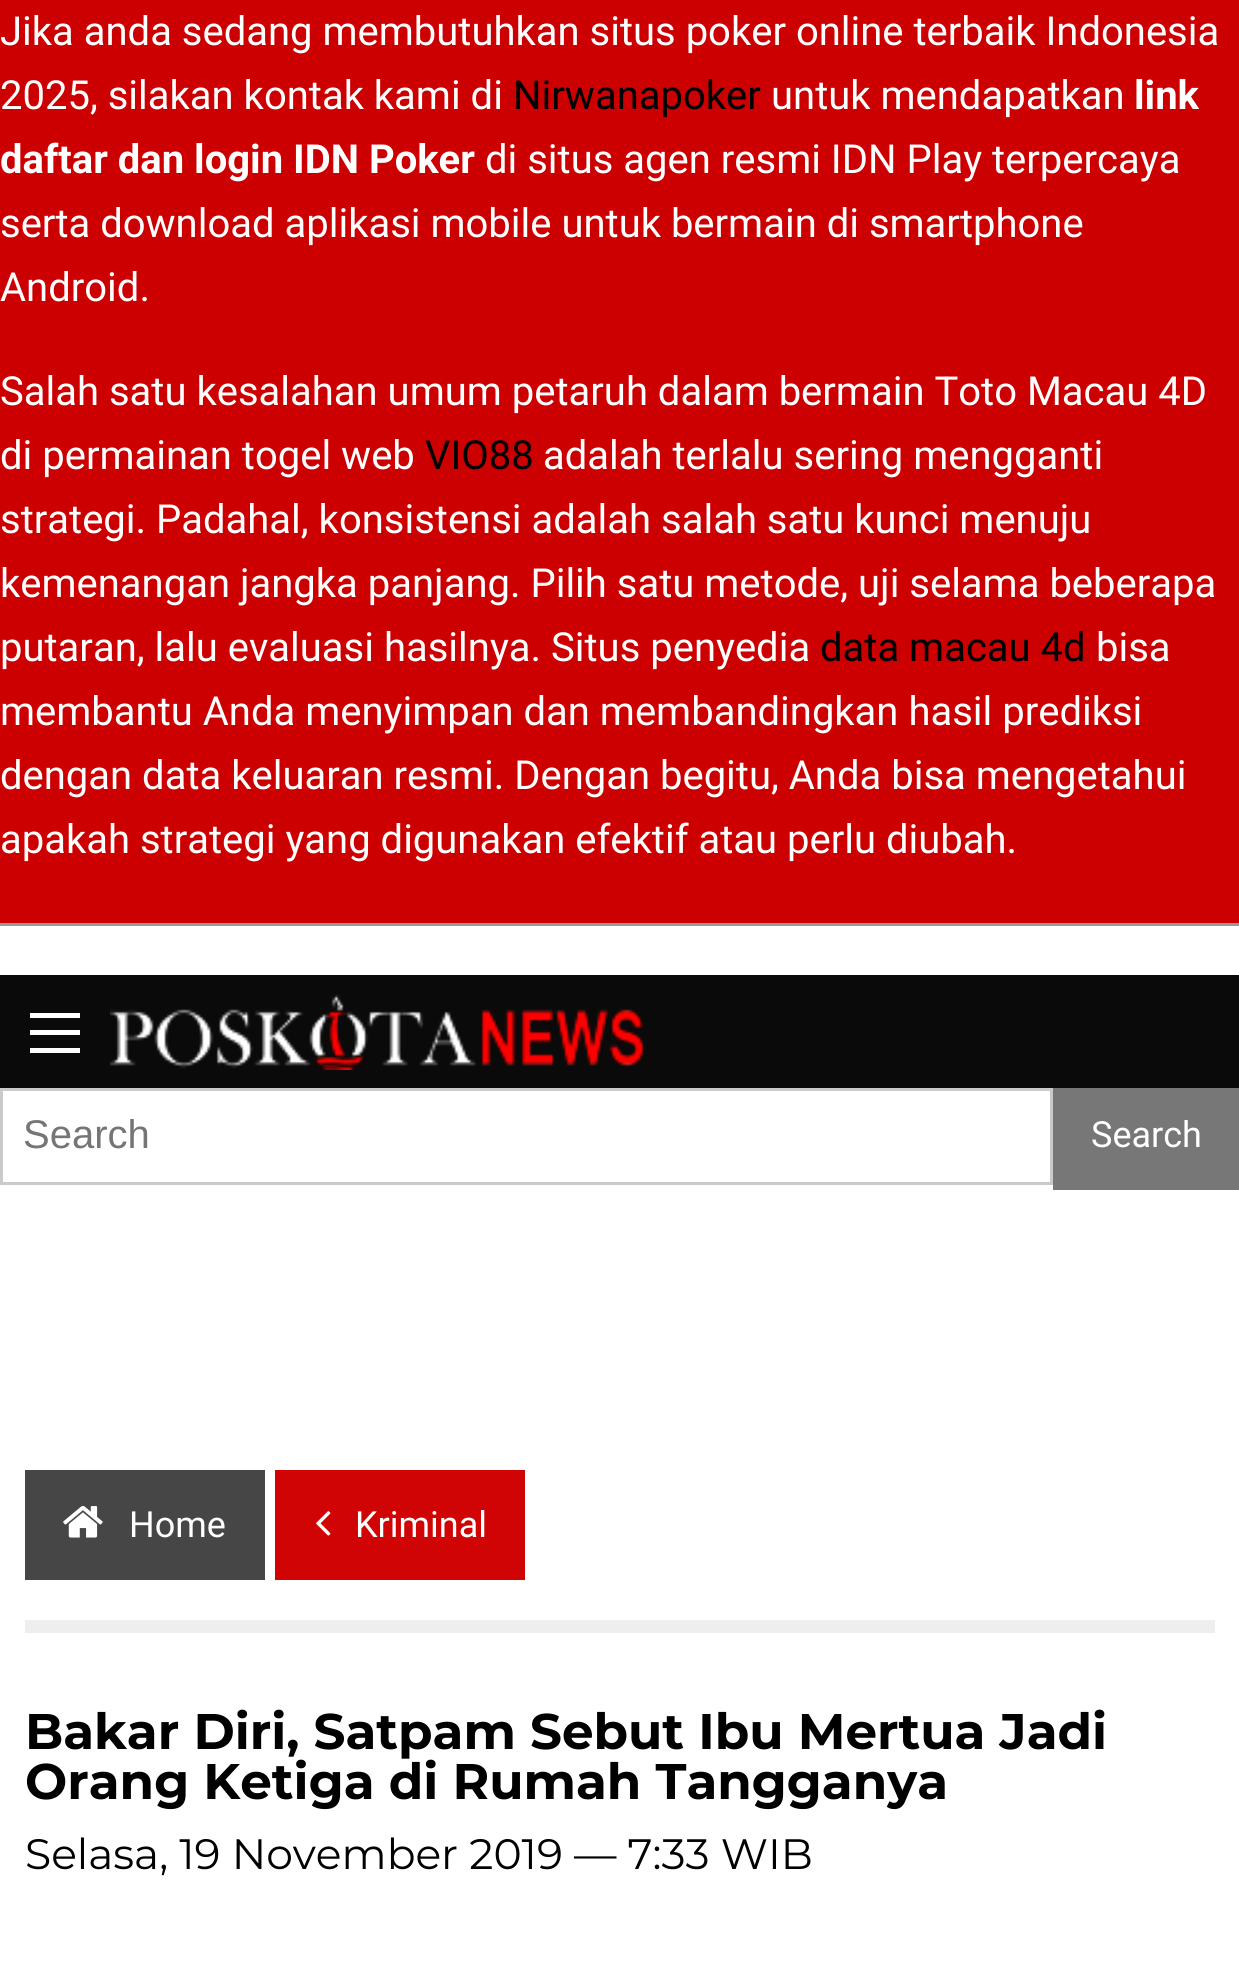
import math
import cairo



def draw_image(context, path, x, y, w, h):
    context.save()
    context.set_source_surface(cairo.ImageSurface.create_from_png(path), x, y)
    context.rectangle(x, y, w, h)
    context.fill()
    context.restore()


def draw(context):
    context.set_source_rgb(1, 1, 1)
    context.paint()
    context.set_source_rgb(204 / 255, 0, 0)
    context.rectangle(0, 0, 1239, 923)
    context.fill()
    context.set_source_rgb(153 / 255, 153 / 255, 153 / 255)
    context.rectangle(0, 923, 1239, 3)
    context.fill()
    context.set_source_rgb(10 / 255, 10 / 255, 10 / 255)
    context.rectangle(0, 975, 1239, 113)
    context.fill()
    context.set_source_rgb(254 / 255, 254 / 255, 254 / 255)
    context.rectangle(30, 1048, 50, 5)
    context.fill()
    context.rectangle(30, 1030, 50, 5)
    context.fill()
    context.rectangle(30, 1013, 50, 5)
    context.fill()
    draw_image(context, "images/1.png", 110, 994, 534, 76)
    context.rectangle(1.5, 1089.5, 1050, 94)
    context.set_source_rgb(202 / 255, 202 / 255, 202 / 255)
    context.set_line_width(3)
    context.stroke()
    context.set_source_rgb(119 / 255, 119 / 255, 119 / 255)
    context.rectangle(1053, 1088, 186, 102)
    context.fill()
    context.set_source_rgb(238 / 255, 238 / 255, 238 / 255)
    context.rectangle(25, 1620, 1190, 13)
    context.fill()
    context.set_source_rgb(70 / 255, 70 / 255, 70 / 255)
    context.rectangle(25, 1470, 240, 110)
    context.fill()
    draw_image(context, "images/2.png", 63, 1506, 40, 32)
    context.set_source_rgb(208 / 255, 4 / 255, 4 / 255)
    context.rectangle(275, 1470, 250, 110)
    context.fill()
    draw_image(context, "images/3.png", 316, 1511, 15, 25)
    context.select_font_face("Roboto")
    context.set_font_size(40)
    context.set_source_rgb(1, 1, 1)
    context.move_to(0, 45)
    context.show_text("Jika anda sedang membutuhkan situs poker online terbaik Indonesia")
    context.move_to(0, 109)
    context.show_text("2025, silakan kontak kami di")
    context.set_source_rgb(0, 0, 0)
    context.move_to(513, 109)
    context.show_text("Nirwanapoker")
    context.set_source_rgb(1, 1, 1)
    context.move_to(771, 109)
    context.show_text("untuk mendapatkan")
    context.select_font_face("Roboto", cairo.FontSlant.NORMAL, cairo.FontWeight.BOLD)
    context.move_to(1134, 109)
    context.show_text("link")
    context.move_to(0, 173)
    context.show_text("daftar dan login IDN Poker")
    context.select_font_face("Roboto")
    context.move_to(485, 173)
    context.show_text("di situs agen resmi IDN Play terpercaya")
    context.move_to(0, 237)
    context.show_text("serta download aplikasi mobile untuk bermain di smartphone")
    context.move_to(0, 301)
    context.show_text("Android.")
    context.move_to(0, 405)
    context.show_text("Salah satu kesalahan umum petaruh dalam bermain Toto Macau 4D")
    context.move_to(0, 469)
    context.show_text("di permainan togel web")
    context.set_source_rgb(0, 0, 0)
    context.move_to(425, 469)
    context.show_text("VIO88")
    context.set_source_rgb(1, 1, 1)
    context.move_to(543, 469)
    context.show_text("adalah terlalu sering mengganti")
    context.move_to(0, 533)
    context.show_text("strategi. Padahal, konsistensi adalah salah satu kunci menuju")
    context.move_to(0, 597)
    context.show_text("kemenangan jangka panjang. Pilih satu metode, uji selama beberapa")
    context.move_to(0, 661)
    context.show_text("putaran, lalu evaluasi hasilnya. Situs penyedia")
    context.set_source_rgb(0, 0, 0)
    context.move_to(820, 661)
    context.show_text("data macau 4d")
    context.set_source_rgb(1, 1, 1)
    context.move_to(1096, 661)
    context.show_text("bisa")
    context.move_to(0, 725)
    context.show_text("membantu Anda menyimpan dan membandingkan hasil prediksi")
    context.move_to(0, 789)
    context.show_text("dengan data keluaran resmi. Dengan begitu, Anda bisa mengetahui")
    context.move_to(0, 853)
    context.show_text("apakah strategi yang digunakan efektif atau perlu diubah.")
    context.select_font_face("Liberation Sans")
    context.set_source_rgb(117 / 255, 117 / 255, 117 / 255)
    context.move_to(23, 1148)
    context.show_text("Search")
    context.select_font_face("Roboto")
    context.set_font_size(36)
    context.set_source_rgb(1, 1, 1)
    context.move_to(1091, 1147)
    context.show_text("Search")
    context.move_to(129, 1537)
    context.show_text("Home")
    context.move_to(355, 1537)
    context.show_text("Kriminal")
    context.select_font_face("Montserrat", cairo.FontSlant.NORMAL, cairo.FontWeight.BOLD)
    context.set_font_size(50)
    context.set_source_rgb(0, 0, 0)
    context.move_to(25, 1749)
    context.show_text("Bakar Diri, Satpam Sebut Ibu Mertua Jadi")
    context.move_to(25, 1799)
    context.show_text("Orang Ketiga di Rumah Tangganya")
    context.select_font_face("Montserrat")
    context.set_font_size(42.5)
    context.move_to(25, 1869)
    context.show_text("Selasa, 19 November 2019 — 7:33 WIB")


surface = cairo.ImageSurface(cairo.Format.RGB24, 1239, 1961)
context = cairo.Context(surface)
options = cairo.FontOptions()
options.set_hint_metrics(cairo.HintMetrics.OFF)
options.set_hint_style(cairo.HintStyle.NONE)
context.set_font_options(options)
context.set_miter_limit(4)
draw(context)
surface.write_to_png("out.png")
